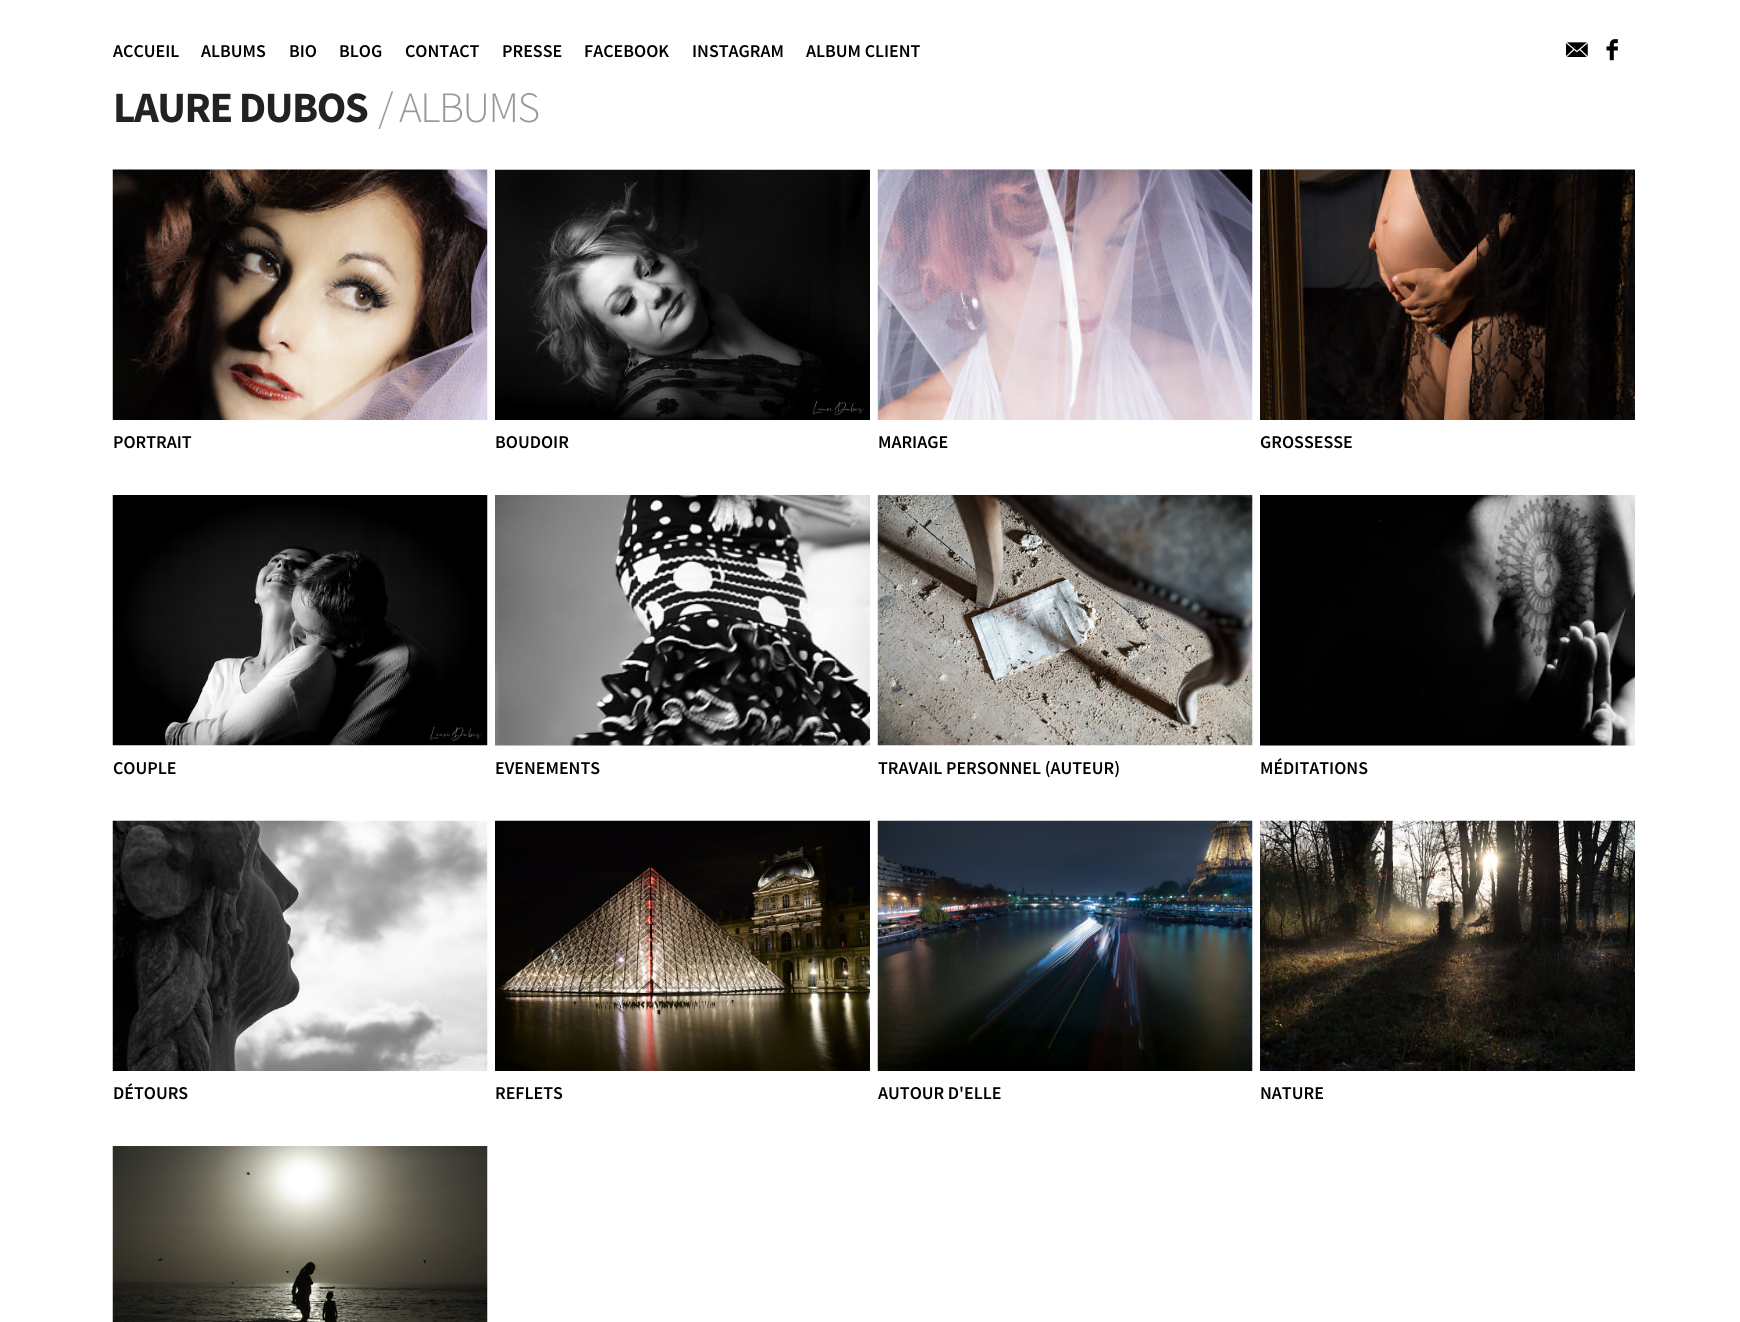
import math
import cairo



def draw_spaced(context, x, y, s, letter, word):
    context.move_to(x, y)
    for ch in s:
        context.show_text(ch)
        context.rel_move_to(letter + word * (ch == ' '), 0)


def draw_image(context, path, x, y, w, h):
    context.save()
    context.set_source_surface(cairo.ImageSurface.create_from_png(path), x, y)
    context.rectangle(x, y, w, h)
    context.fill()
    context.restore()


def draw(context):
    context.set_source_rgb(1, 1, 1)
    context.paint()
    draw_image(context, "images/1.png", 1566, 42, 22, 15)
    draw_image(context, "images/2.png", 1606, 39, 12, 22)
    draw_image(context, "images/3.png", 112, 169, 376, 251)
    draw_image(context, "images/4.png", 495, 169, 375, 251)
    draw_image(context, "images/5.png", 877, 169, 376, 251)
    draw_image(context, "images/6.png", 1260, 169, 375, 251)
    draw_image(context, "images/7.png", 112, 495, 376, 251)
    draw_image(context, "images/8.png", 495, 495, 375, 251)
    draw_image(context, "images/9.png", 877, 495, 376, 251)
    draw_image(context, "images/10.png", 1260, 495, 375, 251)
    draw_image(context, "images/11.png", 112, 820, 376, 251)
    draw_image(context, "images/12.png", 495, 820, 375, 251)
    draw_image(context, "images/13.png", 877, 820, 376, 251)
    draw_image(context, "images/14.png", 1260, 820, 375, 251)
    draw_image(context, "images/15.png", 112, 1146, 376, 176)
    context.select_font_face("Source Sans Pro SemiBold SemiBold")
    context.set_font_size(18)
    context.set_source_rgb(0, 0, 0)
    context.move_to(113, 57)
    context.show_text("ACCUEIL")
    context.move_to(201, 57)
    context.show_text("ALBUMS")
    context.move_to(289, 57)
    context.show_text("BIO")
    context.move_to(339, 57)
    context.show_text("BLOG")
    context.move_to(405, 57)
    context.show_text("CONTACT")
    context.move_to(502, 57)
    context.show_text("PRESSE")
    context.move_to(584, 57)
    context.show_text("FACEBOOK")
    context.move_to(692, 57)
    context.show_text("INSTAGRAM")
    context.move_to(806, 57)
    context.show_text("ALBUM CLIENT")
    context.select_font_face("Source Sans Pro", cairo.FontSlant.NORMAL, cairo.FontWeight.BOLD)
    context.set_font_size(43.25)
    context.set_source_rgb(34 / 255, 34 / 255, 34 / 255)
    draw_spaced(context, 113, 122, "LAURE DUBOS", -1.5, 0)
    context.select_font_face("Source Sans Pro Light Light")
    context.set_source_rgb(153 / 255, 153 / 255, 153 / 255)
    draw_spaced(context, 378, 122, "/ ALBUMS", -1.5, 0)
    context.select_font_face("Source Sans Pro SemiBold SemiBold")
    context.set_font_size(18)
    context.set_source_rgb(0, 0, 0)
    context.move_to(113, 448)
    context.show_text("PORTRAIT")
    context.move_to(495, 448)
    context.show_text("BOUDOIR")
    context.move_to(878, 448)
    context.show_text("MARIAGE")
    context.move_to(1260, 448)
    context.show_text("GROSSESSE")
    context.move_to(113, 774)
    context.show_text("COUPLE")
    context.move_to(495, 774)
    context.show_text("EVENEMENTS")
    context.move_to(878, 774)
    context.show_text("TRAVAIL PERSONNEL (AUTEUR)")
    context.move_to(1260, 774)
    context.show_text("MÉDITATIONS")
    context.move_to(113, 1099)
    context.show_text("DÉTOURS")
    context.move_to(495, 1099)
    context.show_text("REFLETS")
    context.move_to(878, 1099)
    context.show_text("AUTOUR D'ELLE")
    context.move_to(1260, 1099)
    context.show_text("NATURE")


surface = cairo.ImageSurface(cairo.Format.RGB24, 1740, 1322)
context = cairo.Context(surface)
options = cairo.FontOptions()
options.set_hint_metrics(cairo.HintMetrics.OFF)
options.set_hint_style(cairo.HintStyle.NONE)
context.set_font_options(options)
context.set_miter_limit(4)
draw(context)
surface.write_to_png("out.png")
